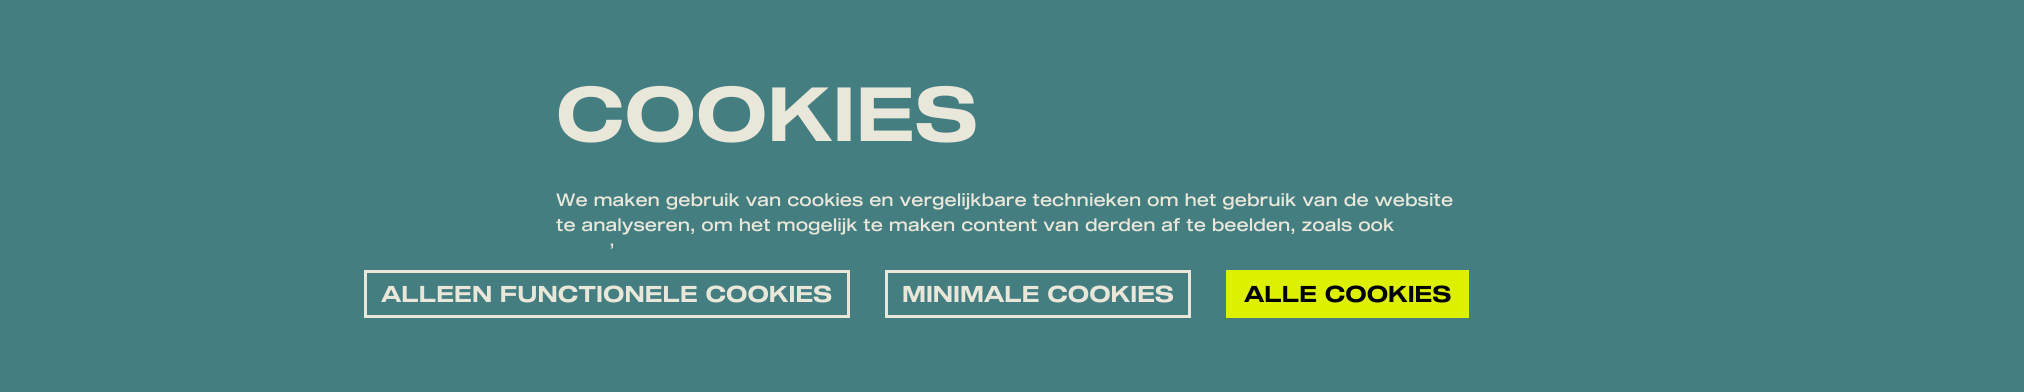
import math
import cairo



def draw(context):
    context.set_source_rgb(69 / 255, 126 / 255, 128 / 255)
    context.paint()
    context.rectangle(365.5, 271.5, 483, 45)
    context.set_source_rgb(233 / 255, 231 / 255, 218 / 255)
    context.set_line_width(3)
    context.stroke()
    context.rectangle(886.5, 271.5, 303, 45)
    context.stroke()
    context.set_source_rgb(220 / 255, 240 / 255, 0)
    context.rectangle(1226, 270, 243, 48)
    context.fill()
    context.select_font_face("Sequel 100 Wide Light")
    context.set_font_size(75)
    context.set_source_rgb(233 / 255, 231 / 255, 218 / 255)
    context.move_to(556, 141)
    context.show_text("COOKIES")
    context.select_font_face("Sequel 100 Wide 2 Light")
    context.set_font_size(17.5)
    context.move_to(556, 206)
    context.show_text("We maken gebruik van cookies en vergelijkbare technieken om het gebruik van de website")
    context.move_to(556, 231)
    context.show_text("te analyseren, om het mogelijk te maken content van derden af te beelden, zoals ook")
    context.move_to(610, 256)
    context.show_text("’")
    context.select_font_face("Sequel 100 Wide Light")
    context.set_font_size(22.5)
    context.move_to(381, 302)
    context.show_text("ALLEEN FUNCTIONELE COOKIES")
    context.move_to(902, 302)
    context.show_text("MINIMALE COOKIES")
    context.set_source_rgb(0, 0, 0)
    context.move_to(1244, 302)
    context.show_text("ALLE COOKIES")


surface = cairo.ImageSurface(cairo.Format.RGB24, 2024, 392)
context = cairo.Context(surface)
options = cairo.FontOptions()
options.set_hint_metrics(cairo.HintMetrics.OFF)
options.set_hint_style(cairo.HintStyle.NONE)
context.set_font_options(options)
context.set_miter_limit(4)
draw(context)
surface.write_to_png("out.png")
